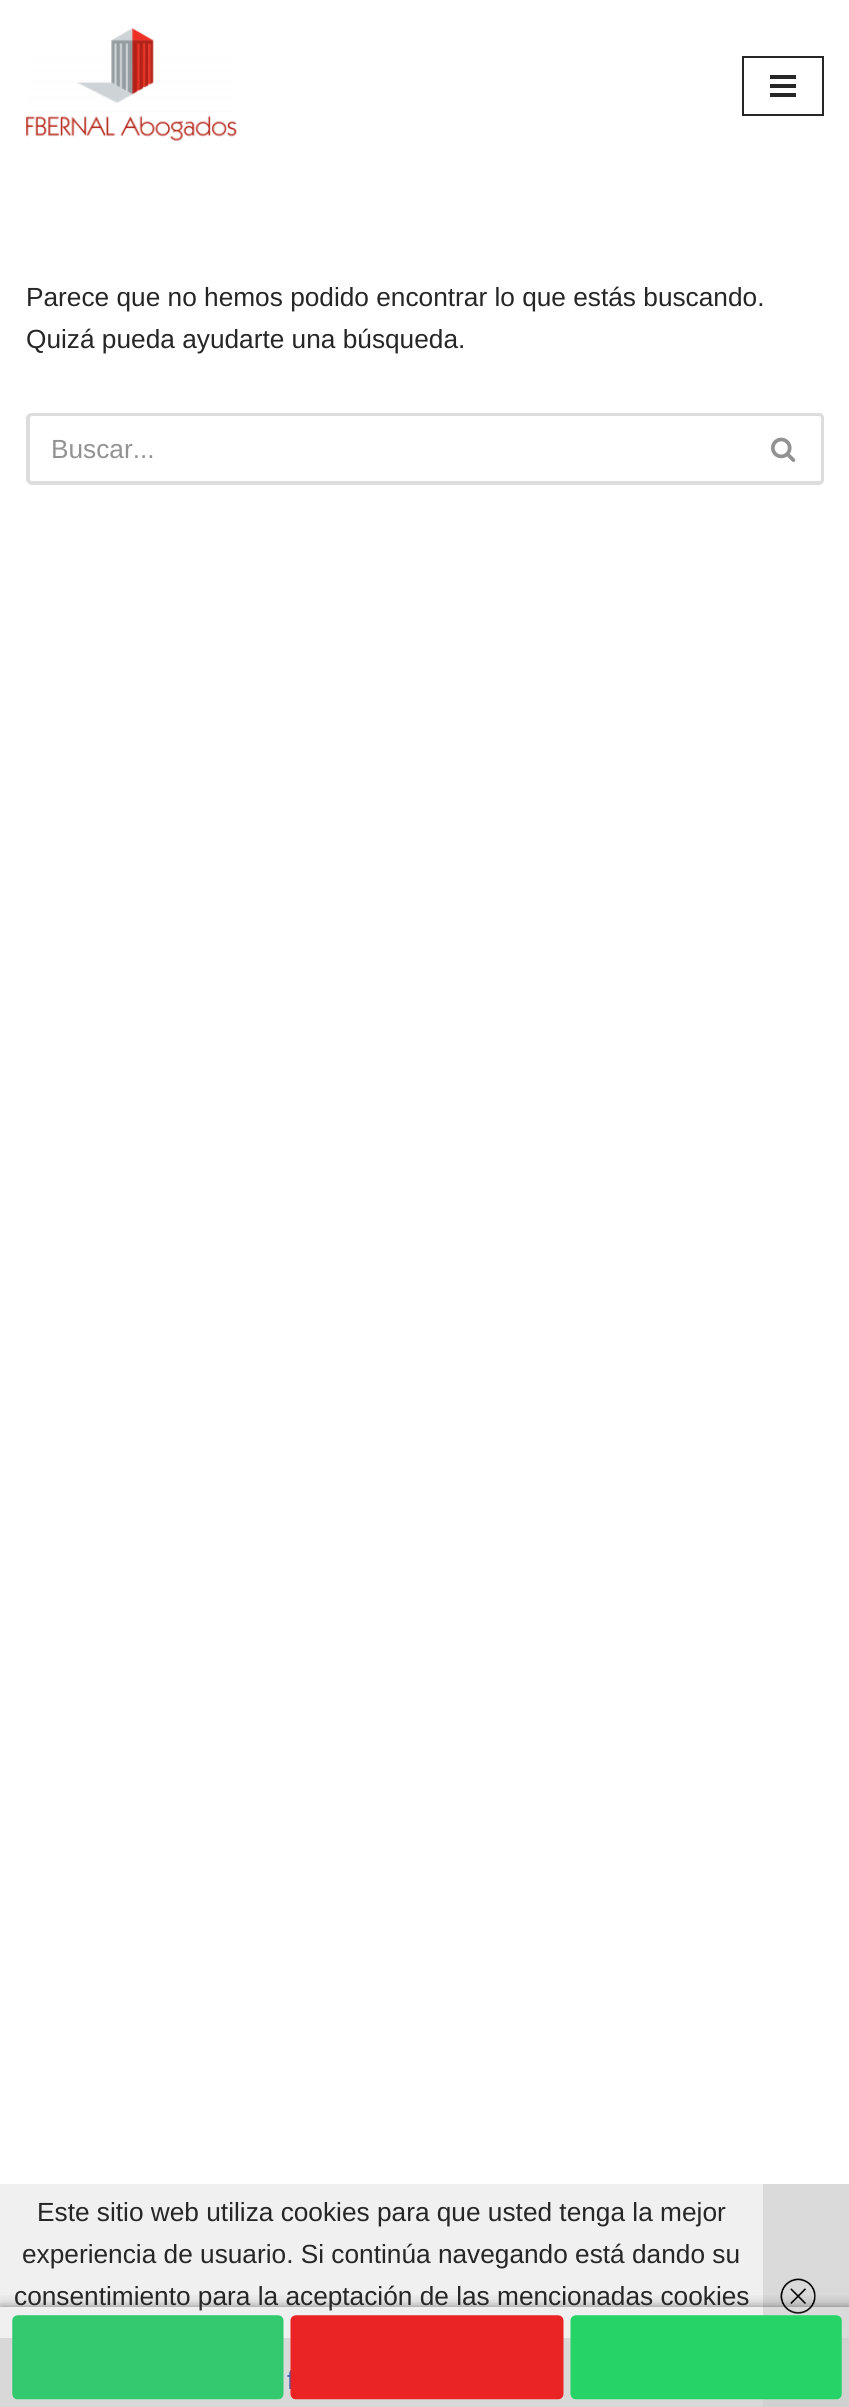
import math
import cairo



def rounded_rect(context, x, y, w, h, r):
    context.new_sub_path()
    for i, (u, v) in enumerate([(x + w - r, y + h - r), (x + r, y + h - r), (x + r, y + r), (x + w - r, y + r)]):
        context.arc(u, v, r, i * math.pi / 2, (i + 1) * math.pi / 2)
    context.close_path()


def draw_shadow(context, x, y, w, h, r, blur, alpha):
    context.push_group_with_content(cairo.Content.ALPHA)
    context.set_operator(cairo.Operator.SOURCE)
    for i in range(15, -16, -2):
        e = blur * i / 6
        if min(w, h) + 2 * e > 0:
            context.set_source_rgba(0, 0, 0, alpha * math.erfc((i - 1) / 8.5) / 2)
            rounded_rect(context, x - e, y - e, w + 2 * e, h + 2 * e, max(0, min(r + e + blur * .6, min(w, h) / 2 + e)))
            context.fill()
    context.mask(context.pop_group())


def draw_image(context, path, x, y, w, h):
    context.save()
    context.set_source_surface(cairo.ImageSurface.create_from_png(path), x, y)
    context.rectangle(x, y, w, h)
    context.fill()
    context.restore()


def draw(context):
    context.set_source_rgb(1, 1, 1)
    context.paint()
    context.set_source_rgb(240 / 255, 240 / 255, 240 / 255)
    context.rectangle(0, 2184, 763, 154)
    context.fill()
    context.set_source_rgb(218 / 255, 218 / 255, 218 / 255)
    context.rectangle(763, 2184, 86, 154)
    context.fill()
    draw_image(context, "images/1.png", 26, 27, 211, 114)
    context.rectangle(743, 57, 80, 58)
    context.set_source_rgb(39 / 255, 38 / 255, 38 / 255)
    context.stroke()
    context.rectangle(770, 75, 26, 4)
    context.fill()
    context.rectangle(770, 84, 26, 4)
    context.fill()
    context.rectangle(770, 93, 26, 4)
    context.fill()
    context.set_source_rgb(221 / 255, 221 / 255, 221 / 255)
    context.set_fill_rule(cairo.FillRule.EVEN_ODD)
    context.new_path()
    context.move_to(32, 413)
    context.line_to(746, 413)
    context.line_to(746, 485)
    context.line_to(32, 485)
    context.curve_to(29, 485, 26, 482, 26, 480)
    context.line_to(26, 418)
    context.curve_to(26, 415, 29, 413, 32, 413)
    context.close_path()
    context.move_to(32, 416)
    context.line_to(746, 416)
    context.line_to(746, 481)
    context.line_to(32, 481)
    context.curve_to(31, 481, 30, 480, 30, 480)
    context.line_to(30, 418)
    context.curve_to(30, 417, 31, 416, 32, 416)
    context.close_path()
    context.fill()
    context.new_path()
    context.move_to(746, 413)
    context.line_to(819, 413)
    context.curve_to(822, 413, 824, 415, 824, 418)
    context.line_to(824, 480)
    context.curve_to(824, 482, 822, 485, 819, 485)
    context.line_to(746, 485)
    context.close_path()
    context.move_to(746, 416)
    context.line_to(819, 416)
    context.curve_to(820, 416, 821, 417, 821, 418)
    context.line_to(821, 480)
    context.curve_to(821, 480, 820, 481, 819, 481)
    context.line_to(746, 481)
    context.close_path()
    context.fill()
    draw_image(context, "images/2.png", 771, 437, 25, 25)
    context.set_source_rgb(216 / 255, 216 / 255, 216 / 255)
    context.rectangle(0, 2338, 763, 69)
    context.fill()
    context.set_source_rgb(209 / 255, 209 / 255, 209 / 255)
    context.rectangle(763, 2338, 86, 69)
    context.fill()
    draw_image(context, "images/3.png", 780, 2278, 36, 36)
    context.save()
    context.set_fill_rule(cairo.FillRule.WINDING)
    context.rectangle(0, 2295, 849, 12)
    context.clip()
    context.set_source_rgb(0, 0, 0)
    draw_shadow(context, 0, 2310, 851, 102, 0, 9, 0.42)
    context.restore()
    context.save()
    context.set_fill_rule(cairo.FillRule.WINDING)
    context.rectangle(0, 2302, 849, 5)
    context.clip()
    context.set_source_rgb(0, 0, 0)
    draw_shadow(context, 0, 2310, 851, 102, 0, 4.5, 0.46)
    context.restore()
    context.select_font_face("Liberation Sans")
    context.set_font_size(26.25)
    context.set_source_rgb(39 / 255, 38 / 255, 38 / 255)
    context.move_to(26, 306)
    context.show_text("Parece que no hemos podido encontrar lo que estás buscando.")
    context.move_to(26, 348)
    context.show_text("Quizá pueda ayudarte una búsqueda.")
    context.set_source_rgb(147 / 255, 147 / 255, 147 / 255)
    context.move_to(51, 458)
    context.show_text("Buscar...")
    context.set_source_rgb(39 / 255, 38 / 255, 38 / 255)
    context.move_to(37, 2221)
    context.show_text("Este sitio web utiliza cookies para que usted tenga la mejor")
    context.move_to(22, 2263)
    context.show_text("experiencia de usuario. Si continúa navegando está dando su")
    context.move_to(14, 2305)
    context.show_text("consentimiento para la aceptación de las mencionadas cookies")
    context.set_source_rgb(47 / 255, 90 / 255, 174 / 255)
    context.move_to(287, 2389)
    context.show_text("f")
    draw_image(context, "images/4.png", 12, 2307, 830, 93)


surface = cairo.ImageSurface(cairo.Format.RGB24, 849, 2407)
context = cairo.Context(surface)
options = cairo.FontOptions()
options.set_hint_metrics(cairo.HintMetrics.OFF)
options.set_hint_style(cairo.HintStyle.NONE)
context.set_font_options(options)
context.set_miter_limit(4)
draw(context)
surface.write_to_png("out.png")
